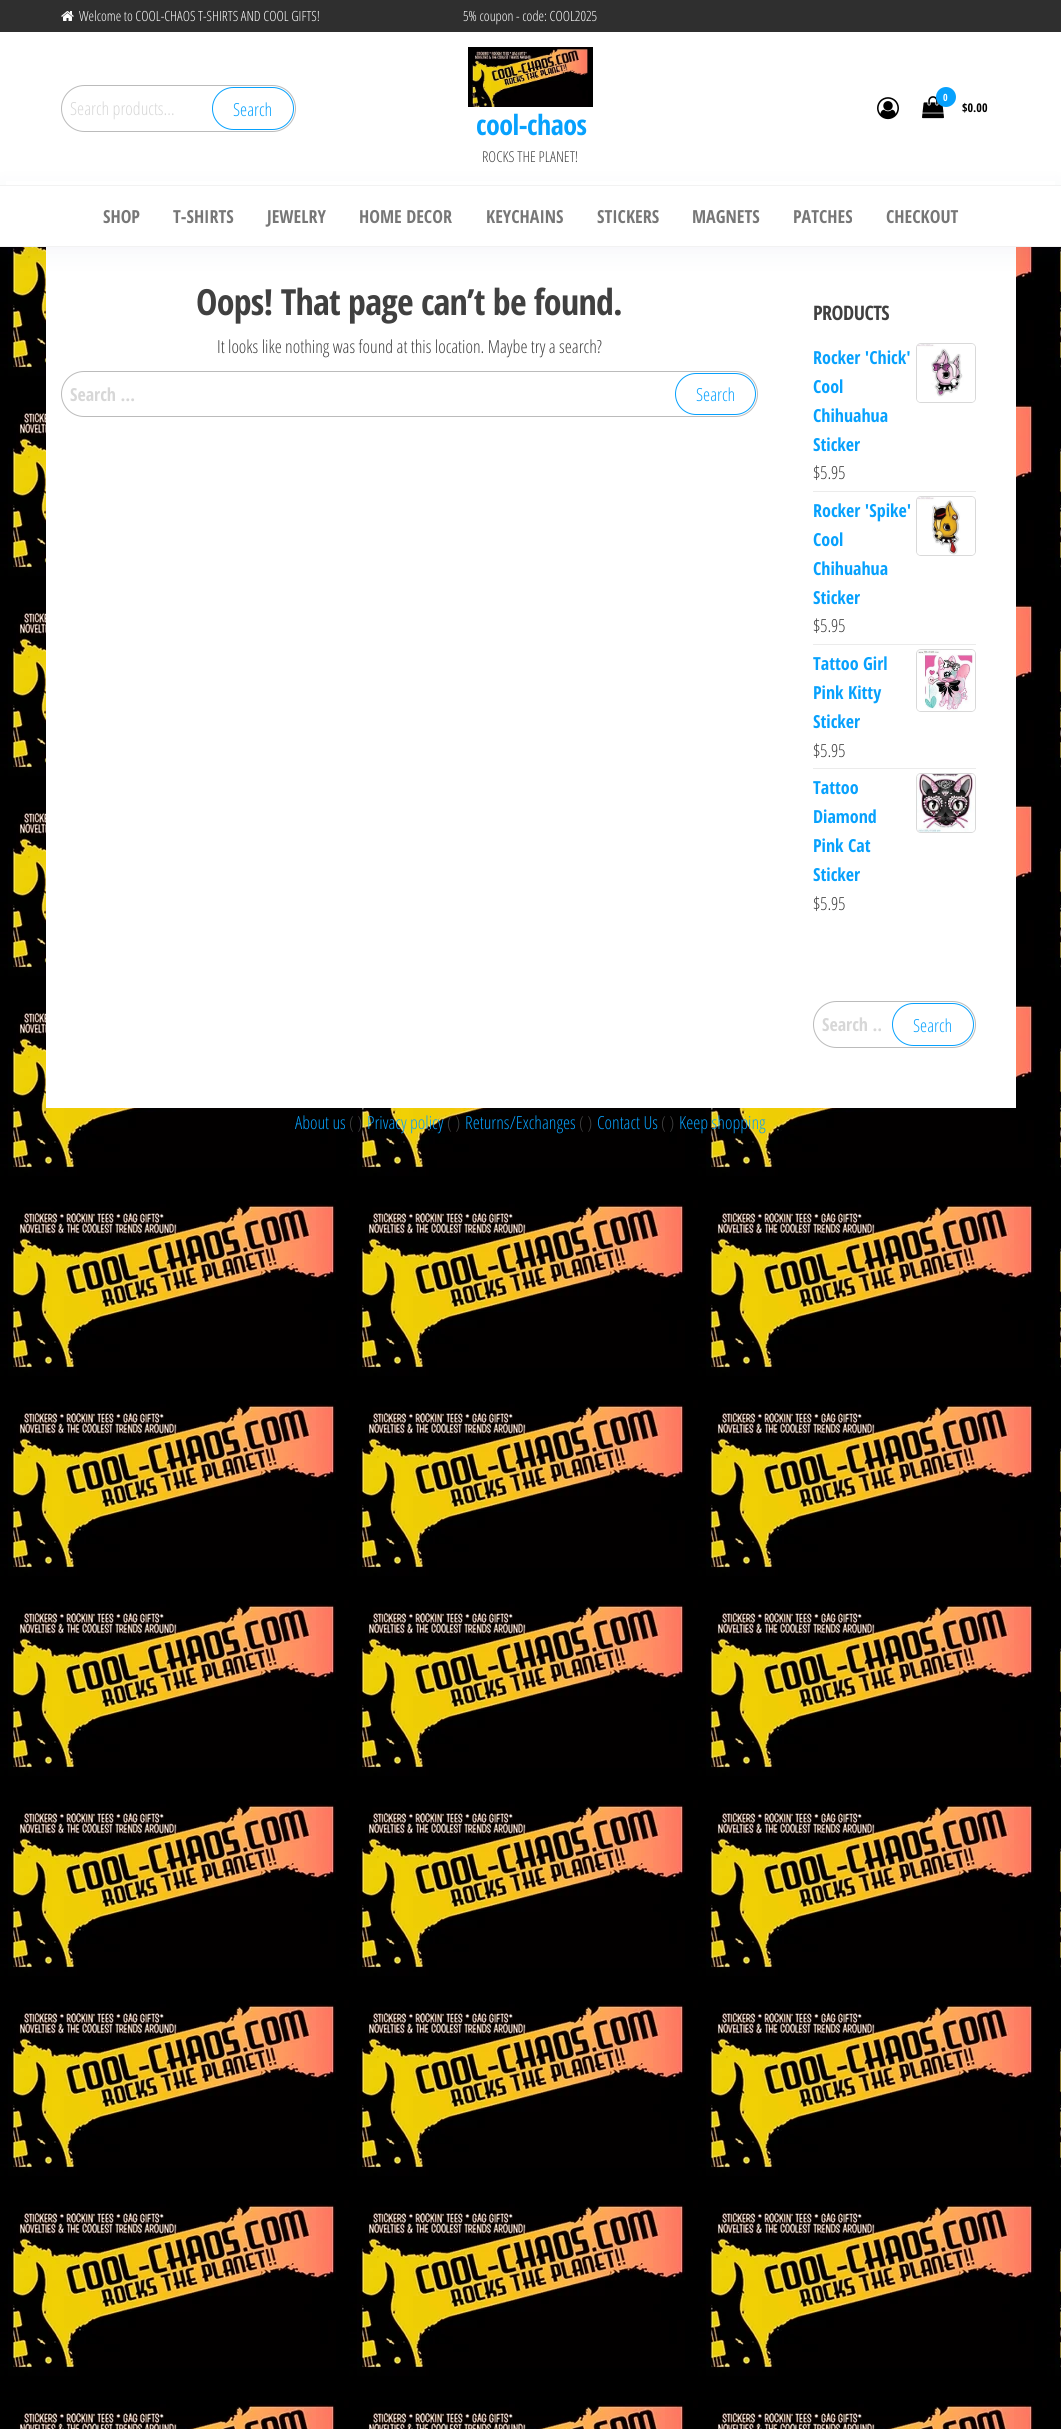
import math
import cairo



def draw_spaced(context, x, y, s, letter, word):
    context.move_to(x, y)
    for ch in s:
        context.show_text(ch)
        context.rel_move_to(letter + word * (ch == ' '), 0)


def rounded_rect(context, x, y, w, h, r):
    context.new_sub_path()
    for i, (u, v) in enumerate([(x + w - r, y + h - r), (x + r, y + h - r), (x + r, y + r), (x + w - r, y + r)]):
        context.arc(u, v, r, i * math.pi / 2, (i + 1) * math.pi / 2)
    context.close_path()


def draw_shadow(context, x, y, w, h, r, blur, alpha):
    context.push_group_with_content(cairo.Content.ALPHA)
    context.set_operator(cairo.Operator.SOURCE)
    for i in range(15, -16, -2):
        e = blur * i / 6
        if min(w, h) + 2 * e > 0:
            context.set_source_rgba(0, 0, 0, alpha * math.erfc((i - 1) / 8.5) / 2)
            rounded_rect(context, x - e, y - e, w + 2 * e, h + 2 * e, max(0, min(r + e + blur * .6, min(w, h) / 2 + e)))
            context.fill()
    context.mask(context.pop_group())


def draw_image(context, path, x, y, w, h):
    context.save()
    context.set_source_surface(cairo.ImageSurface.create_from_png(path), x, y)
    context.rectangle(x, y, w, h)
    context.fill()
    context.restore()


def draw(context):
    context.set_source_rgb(1, 1, 1)
    context.paint()
    draw_image(context, "images/1.png", 0, 247, 1061, 2182)
    context.set_source_rgb(47 / 255, 47 / 255, 47 / 255)
    context.rectangle(0, 0, 1061, 32)
    context.fill()
    draw_image(context, "images/2.png", 61, 11, 13, 10)
    context.set_source_rgb(1, 1, 1)
    context.rectangle(46, 247, 970, 861)
    context.fill()
    context.set_source_rgb(28 / 255, 45 / 255, 113 / 255)
    draw_shadow(context, 0, 190, 1061, 62, 0, 12.5, 0.05)
    context.set_source_rgb(1, 1, 1)
    context.rectangle(6, 181, 1049, 4)
    context.fill()
    rounded_rect(context, 61.5, 85.5, 234, 46, 23)
    context.set_source_rgb(187 / 255, 187 / 255, 187 / 255)
    context.set_line_width(1)
    context.stroke()
    rounded_rect(context, 212.5, 87.5, 81, 42, 21)
    context.set_source_rgb(7 / 255, 161 / 255, 253 / 255)
    context.stroke()
    draw_image(context, "images/3.png", 877, 97, 22, 23)
    draw_image(context, "images/4.png", 922, 96, 22, 23)
    context.arc(946, 97, 10, 0, 2 * math.pi)
    context.fill()
    draw_image(context, "images/5.png", 468, 47, 125, 60)
    context.set_source_rgb(1, 1, 1)
    context.rectangle(0, 186, 1061, 60)
    context.fill()
    context.set_source_rgb(242 / 255, 242 / 255, 242 / 255)
    context.rectangle(0, 185, 1061, 1)
    context.fill()
    context.rectangle(0, 246, 1061, 1)
    context.fill()
    rounded_rect(context, 61.5, 371.5, 696, 45, 22.5)
    context.set_source_rgb(187 / 255, 187 / 255, 187 / 255)
    context.stroke()
    rounded_rect(context, 675.5, 373.5, 80, 41, 20.5)
    context.set_source_rgb(7 / 255, 161 / 255, 253 / 255)
    context.stroke()
    context.set_source_rgb(235 / 255, 235 / 255, 235 / 255)
    context.rectangle(813, 491, 163, 1)
    context.fill()
    rounded_rect(context, 916.5, 343.5, 59, 59, 4.5)
    context.set_source_rgb(217 / 255, 217 / 255, 217 / 255)
    context.stroke()
    draw_image(context, "images/6.png", 917, 344, 58, 58)
    context.set_source_rgb(235 / 255, 235 / 255, 235 / 255)
    context.rectangle(813, 644, 163, 1)
    context.fill()
    rounded_rect(context, 916.5, 496.5, 59, 59, 4.5)
    context.set_source_rgb(217 / 255, 217 / 255, 217 / 255)
    context.stroke()
    draw_image(context, "images/7.png", 917, 497, 58, 58)
    context.set_source_rgb(235 / 255, 235 / 255, 235 / 255)
    context.rectangle(813, 768, 163, 1)
    context.fill()
    rounded_rect(context, 916.5, 649.5, 59, 62, 4.5)
    context.set_source_rgb(217 / 255, 217 / 255, 217 / 255)
    context.stroke()
    draw_image(context, "images/8.png", 917, 650, 58, 61)
    rounded_rect(context, 916.5, 773.5, 59, 59, 4.5)
    context.stroke()
    draw_image(context, "images/9.png", 917, 774, 58, 58)
    rounded_rect(context, 813.5, 1001.5, 162, 46, 23)
    context.set_source_rgb(187 / 255, 187 / 255, 187 / 255)
    context.stroke()
    rounded_rect(context, 892.5, 1003.5, 81, 42, 21)
    context.set_source_rgb(7 / 255, 161 / 255, 253 / 255)
    context.stroke()
    context.select_font_face("Open Sans Condensed Light")
    context.set_font_size(14)
    context.set_source_rgb(1, 1, 1)
    context.move_to(79, 21)
    context.show_text("Welcome to COOL-CHAOS T-SHIRTS AND COOL GIFTS!")
    context.move_to(463, 21)
    context.show_text("5% coupon - code: COOL2025")
    context.set_font_size(18)
    context.set_source_rgb(215 / 255, 215 / 255, 215 / 255)
    context.move_to(70, 115)
    context.show_text("Search products…")
    context.set_source_rgb(7 / 255, 161 / 255, 253 / 255)
    context.move_to(233, 116)
    context.show_text("Search")
    context.select_font_face("Open Sans Condensed", cairo.FontSlant.NORMAL, cairo.FontWeight.BOLD)
    context.set_font_size(10)
    context.set_source_rgb(1, 1, 1)
    context.move_to(943, 101)
    context.show_text("0")
    context.set_font_size(12)
    context.set_source_rgb(0, 0, 0)
    context.move_to(962, 112)
    context.show_text("$0.00")
    context.set_font_size(28)
    context.set_source_rgb(7 / 255, 161 / 255, 253 / 255)
    draw_spaced(context, 476, 135, "cool-chaos", -0.5, 0)
    context.select_font_face("Open Sans Condensed Light")
    context.set_font_size(15)
    context.set_source_rgb(64 / 255, 64 / 255, 64 / 255)
    context.move_to(482, 162)
    context.show_text("ROCKS THE PLANET!")
    context.select_font_face("Open Sans Condensed", cairo.FontSlant.NORMAL, cairo.FontWeight.BOLD)
    context.set_font_size(18)
    context.set_source_rgb(119 / 255, 119 / 255, 119 / 255)
    context.move_to(103, 223)
    context.show_text("SHOP")
    context.move_to(173, 223)
    context.show_text("T-SHIRTS")
    context.move_to(267, 223)
    context.show_text("JEWELRY")
    context.move_to(359, 223)
    context.show_text("HOME DECOR")
    context.move_to(486, 223)
    context.show_text("KEYCHAINS")
    context.move_to(597, 223)
    context.show_text("STICKERS")
    context.move_to(692, 223)
    context.show_text("MAGNETS")
    context.move_to(793, 223)
    context.show_text("PATCHES")
    context.move_to(886, 223)
    context.show_text("CHECKOUT")
    context.set_font_size(36)
    context.set_source_rgb(64 / 255, 64 / 255, 64 / 255)
    draw_spaced(context, 196, 315, "Oops! That page can’t be found.", -0.75, 0)
    context.select_font_face("Open Sans Condensed Light")
    context.set_font_size(18)
    context.move_to(217, 353)
    context.show_text("It looks like nothing was found at this location. Maybe try a search?")
    context.select_font_face("Open Sans Condensed", cairo.FontSlant.NORMAL, cairo.FontWeight.BOLD)
    context.set_source_rgb(215 / 255, 215 / 255, 215 / 255)
    context.move_to(70, 401)
    context.show_text("Search …")
    context.select_font_face("Open Sans Condensed Light")
    context.set_source_rgb(7 / 255, 161 / 255, 253 / 255)
    context.move_to(696, 401)
    context.show_text("Search")
    context.select_font_face("Open Sans Condensed", cairo.FontSlant.NORMAL, cairo.FontWeight.BOLD)
    context.set_font_size(20)
    context.set_source_rgb(64 / 255, 64 / 255, 64 / 255)
    draw_spaced(context, 813, 320, "PRODUCTS", -0.5, 0)
    context.set_font_size(18)
    context.set_source_rgb(7 / 255, 161 / 255, 253 / 255)
    context.move_to(813, 364)
    context.show_text("Rocker 'Chick'")
    context.move_to(813, 393)
    context.show_text("Cool")
    context.move_to(813, 422)
    context.show_text("Chihuahua")
    context.move_to(813, 451)
    context.show_text("Sticker")
    context.select_font_face("Open Sans Condensed Light")
    context.set_source_rgb(64 / 255, 64 / 255, 64 / 255)
    context.move_to(813, 479)
    context.show_text("$5.95")
    context.select_font_face("Open Sans Condensed", cairo.FontSlant.NORMAL, cairo.FontWeight.BOLD)
    context.set_source_rgb(7 / 255, 161 / 255, 253 / 255)
    context.move_to(813, 517)
    context.show_text("Rocker 'Spike'")
    context.move_to(813, 546)
    context.show_text("Cool")
    context.move_to(813, 575)
    context.show_text("Chihuahua")
    context.move_to(813, 604)
    context.show_text("Sticker")
    context.select_font_face("Open Sans Condensed Light")
    context.set_source_rgb(64 / 255, 64 / 255, 64 / 255)
    context.move_to(813, 632)
    context.show_text("$5.95")
    context.select_font_face("Open Sans Condensed", cairo.FontSlant.NORMAL, cairo.FontWeight.BOLD)
    context.set_source_rgb(7 / 255, 161 / 255, 253 / 255)
    context.move_to(813, 670)
    context.show_text("Tattoo Girl")
    context.move_to(813, 699)
    context.show_text("Pink Kitty")
    context.move_to(813, 728)
    context.show_text("Sticker")
    context.select_font_face("Open Sans Condensed Light")
    context.set_source_rgb(64 / 255, 64 / 255, 64 / 255)
    context.move_to(813, 757)
    context.show_text("$5.95")
    context.select_font_face("Open Sans Condensed", cairo.FontSlant.NORMAL, cairo.FontWeight.BOLD)
    context.set_source_rgb(7 / 255, 161 / 255, 253 / 255)
    context.move_to(813, 794)
    context.show_text("Tattoo")
    context.move_to(813, 823)
    context.show_text("Diamond")
    context.move_to(813, 852)
    context.show_text("Pink Cat")
    context.move_to(813, 881)
    context.show_text("Sticker")
    context.select_font_face("Open Sans Condensed Light")
    context.set_source_rgb(64 / 255, 64 / 255, 64 / 255)
    context.move_to(813, 910)
    context.show_text("$5.95")
    context.save()
    context.rectangle(822, 1012, 59, 24)
    context.clip()
    context.select_font_face("Open Sans Condensed", cairo.FontSlant.NORMAL, cairo.FontWeight.BOLD)
    context.set_source_rgb(215 / 255, 215 / 255, 215 / 255)
    context.move_to(822, 1031)
    context.show_text("Search …")
    context.restore()
    context.set_source_rgb(7 / 255, 161 / 255, 253 / 255)
    context.move_to(913, 1032)
    context.show_text("Search")
    context.move_to(295, 1129)
    context.show_text("About us")
    context.set_source_rgb(64 / 255, 64 / 255, 64 / 255)
    context.move_to(349, 1129)
    context.show_text("( )")
    context.set_source_rgb(7 / 255, 161 / 255, 253 / 255)
    context.move_to(367, 1129)
    context.show_text("Privacy policy")
    context.set_source_rgb(64 / 255, 64 / 255, 64 / 255)
    context.move_to(447, 1129)
    context.show_text("( )")
    context.set_source_rgb(7 / 255, 161 / 255, 253 / 255)
    context.move_to(465, 1129)
    context.show_text("Returns/Exchanges")
    context.set_source_rgb(64 / 255, 64 / 255, 64 / 255)
    context.move_to(579, 1129)
    context.show_text("( )")
    context.set_source_rgb(7 / 255, 161 / 255, 253 / 255)
    context.move_to(597, 1129)
    context.show_text("Contact Us")
    context.set_source_rgb(64 / 255, 64 / 255, 64 / 255)
    context.move_to(661, 1129)
    context.show_text("( )")
    context.set_source_rgb(7 / 255, 161 / 255, 253 / 255)
    context.move_to(679, 1129)
    context.show_text("Keep shopping")


surface = cairo.ImageSurface(cairo.Format.RGB24, 1061, 2429)
context = cairo.Context(surface)
options = cairo.FontOptions()
options.set_hint_metrics(cairo.HintMetrics.OFF)
options.set_hint_style(cairo.HintStyle.NONE)
context.set_font_options(options)
context.set_miter_limit(4)
draw(context)
surface.write_to_png("out.png")
